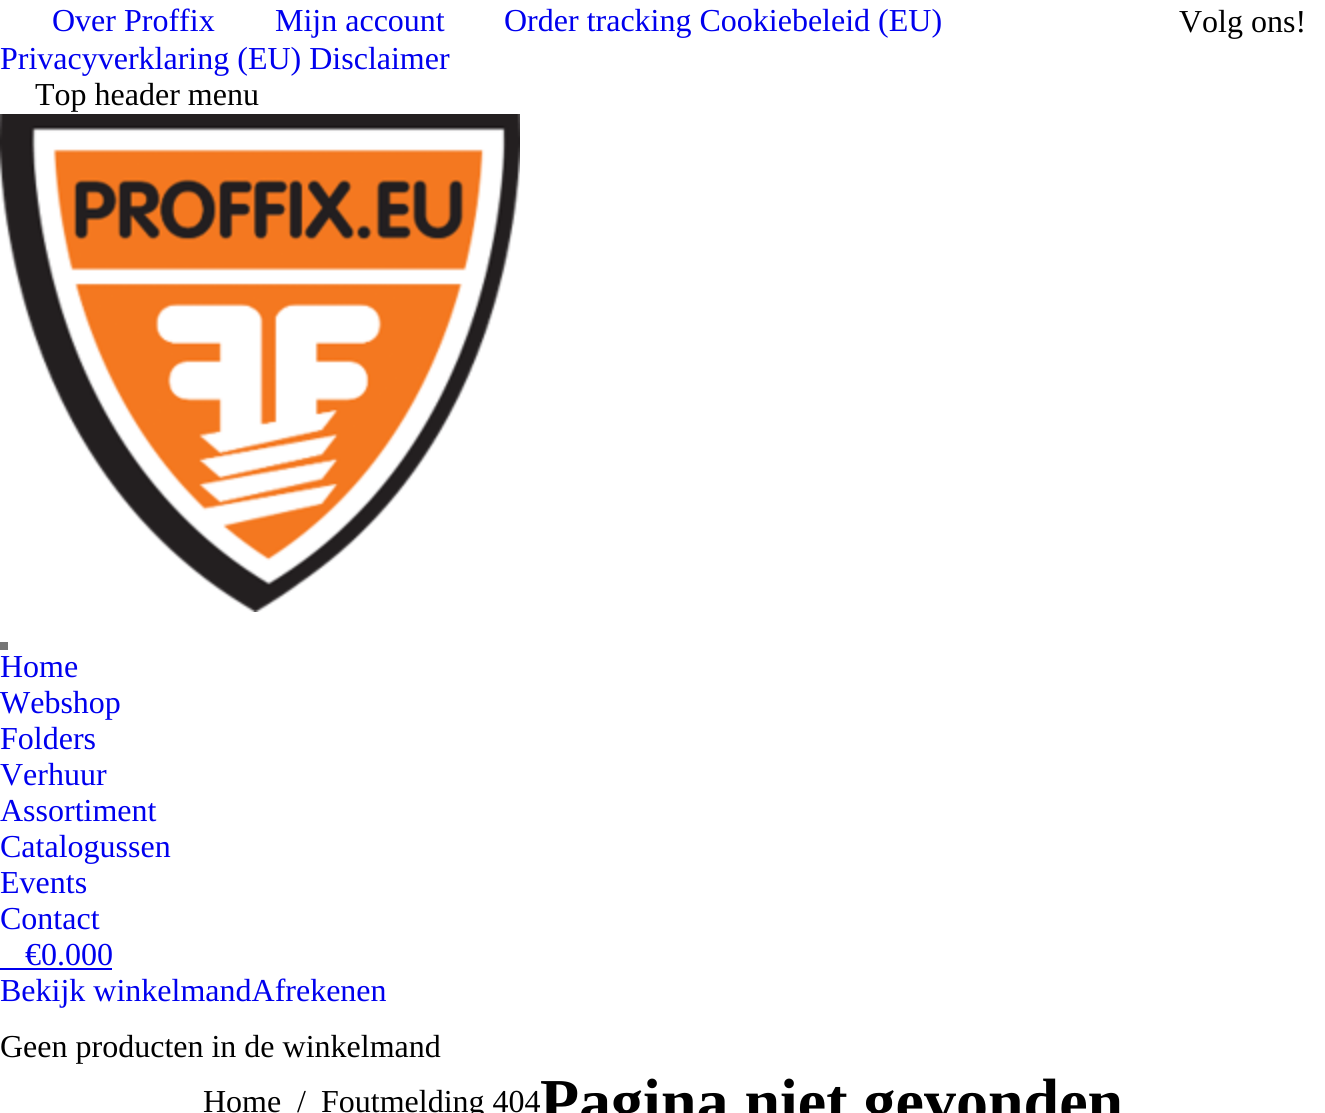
import math
import cairo



def draw_image(context, path, x, y, w, h):
    context.save()
    context.set_source_surface(cairo.ImageSurface.create_from_png(path), x, y)
    context.rectangle(x, y, w, h)
    context.fill()
    context.restore()


def draw(context):
    context.set_source_rgb(1, 1, 1)
    context.paint()
    draw_image(context, "images/1.png", 0, 114, 520, 498)
    context.set_source_rgb(118 / 255, 118 / 255, 118 / 255)
    context.rectangle(0, 642, 8, 8)
    context.fill()
    context.set_source_rgb(0, 0, 238 / 255)
    context.rectangle(0, 968, 112, 2)
    context.fill()
    context.select_font_face("Liberation Serif")
    context.set_font_size(32)
    context.move_to(52, 31)
    context.show_text("Over Proffix")
    context.move_to(275, 31)
    context.show_text("Mijn account")
    context.move_to(504, 31)
    context.show_text("Order tracking Cookiebeleid (EU)")
    context.move_to(0, 69)
    context.show_text("Privacyverklaring (EU) Disclaimer")
    context.set_source_rgb(0, 0, 0)
    context.move_to(35, 105)
    context.show_text("Top header menu")
    context.move_to(1179, 32)
    context.show_text("Volg ons!")
    context.set_source_rgb(0, 0, 238 / 255)
    context.move_to(0, 677)
    context.show_text("Home")
    context.move_to(0, 713)
    context.show_text("Webshop")
    context.move_to(0, 749)
    context.show_text("Folders")
    context.move_to(0, 785)
    context.show_text("Verhuur")
    context.move_to(0, 821)
    context.show_text("Assortiment")
    context.move_to(0, 857)
    context.show_text("Catalogussen")
    context.move_to(0, 893)
    context.show_text("Events")
    context.move_to(0, 929)
    context.show_text("Contact")
    context.move_to(25, 965)
    context.show_text("€0.000")
    context.move_to(0, 1001)
    context.show_text("Bekijk winkelmandAfrekenen")
    context.set_source_rgb(0, 0, 0)
    context.move_to(0, 1057)
    context.show_text("Geen producten in de winkelmand")
    context.move_to(203, 1112)
    context.show_text("Home")
    context.move_to(297, 1112)
    context.show_text("/")
    context.move_to(321, 1112)
    context.show_text("Foutmelding 404")
    context.select_font_face("Liberation Serif", cairo.FontSlant.NORMAL, cairo.FontWeight.BOLD)
    context.set_font_size(64)
    context.move_to(540, 1123)
    context.show_text("Pagina niet gevonden")


surface = cairo.ImageSurface(cairo.Format.RGB24, 1325, 1113)
context = cairo.Context(surface)
options = cairo.FontOptions()
options.set_hint_metrics(cairo.HintMetrics.OFF)
options.set_hint_style(cairo.HintStyle.NONE)
context.set_font_options(options)
context.set_miter_limit(4)
draw(context)
surface.write_to_png("out.png")
